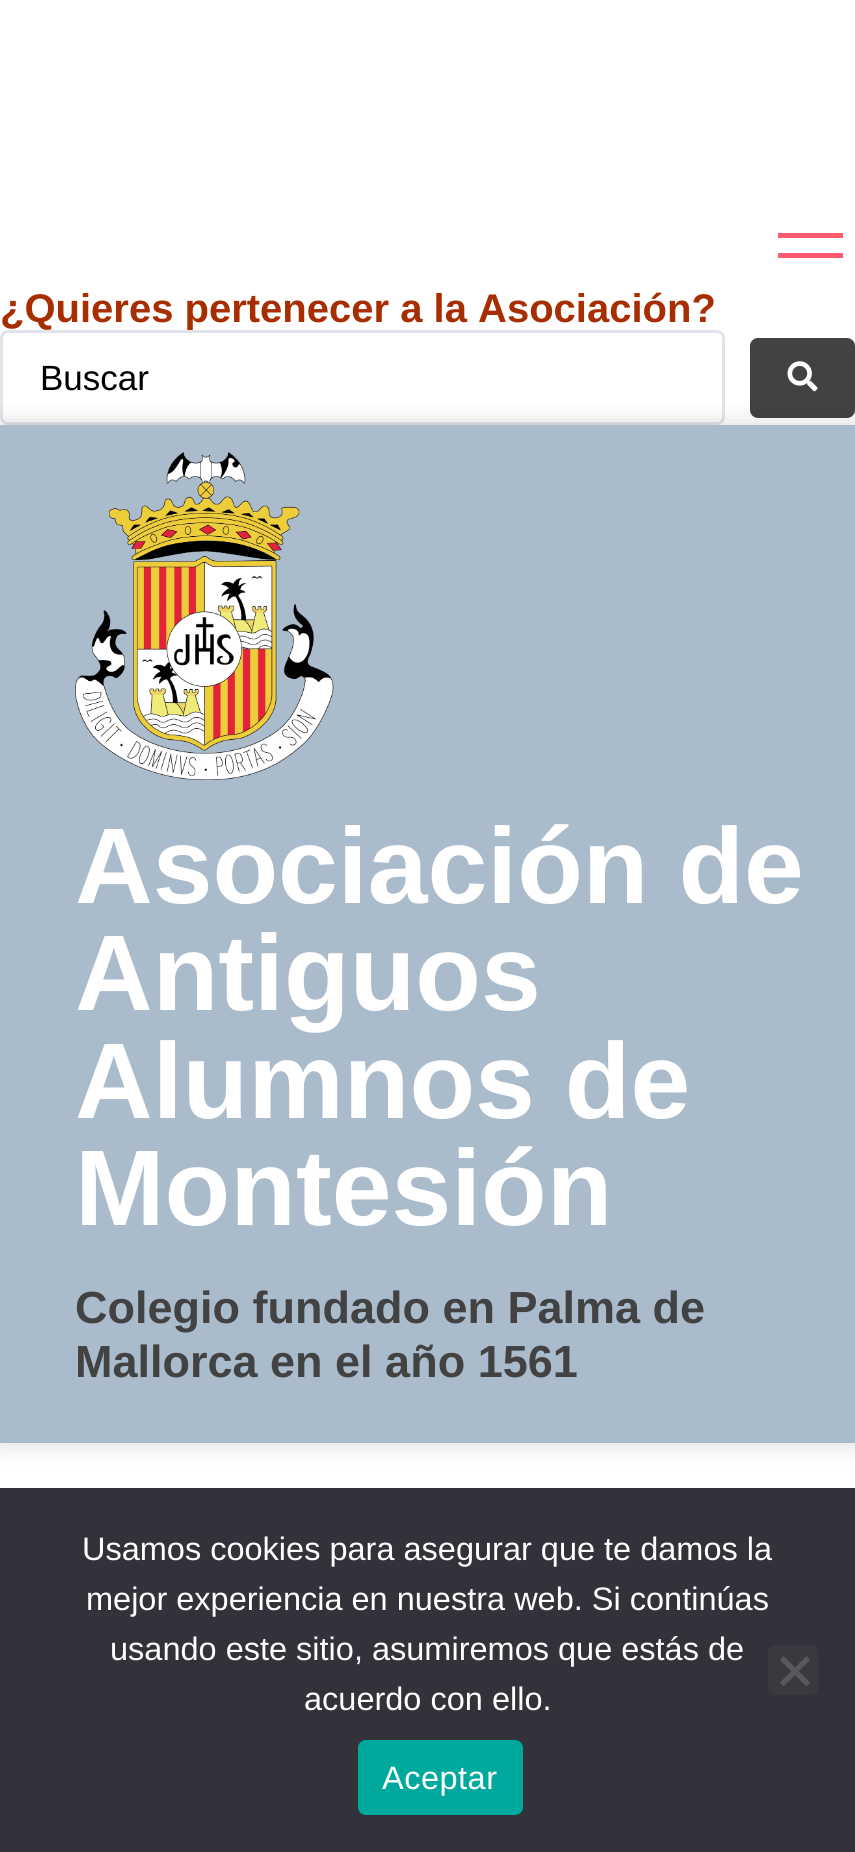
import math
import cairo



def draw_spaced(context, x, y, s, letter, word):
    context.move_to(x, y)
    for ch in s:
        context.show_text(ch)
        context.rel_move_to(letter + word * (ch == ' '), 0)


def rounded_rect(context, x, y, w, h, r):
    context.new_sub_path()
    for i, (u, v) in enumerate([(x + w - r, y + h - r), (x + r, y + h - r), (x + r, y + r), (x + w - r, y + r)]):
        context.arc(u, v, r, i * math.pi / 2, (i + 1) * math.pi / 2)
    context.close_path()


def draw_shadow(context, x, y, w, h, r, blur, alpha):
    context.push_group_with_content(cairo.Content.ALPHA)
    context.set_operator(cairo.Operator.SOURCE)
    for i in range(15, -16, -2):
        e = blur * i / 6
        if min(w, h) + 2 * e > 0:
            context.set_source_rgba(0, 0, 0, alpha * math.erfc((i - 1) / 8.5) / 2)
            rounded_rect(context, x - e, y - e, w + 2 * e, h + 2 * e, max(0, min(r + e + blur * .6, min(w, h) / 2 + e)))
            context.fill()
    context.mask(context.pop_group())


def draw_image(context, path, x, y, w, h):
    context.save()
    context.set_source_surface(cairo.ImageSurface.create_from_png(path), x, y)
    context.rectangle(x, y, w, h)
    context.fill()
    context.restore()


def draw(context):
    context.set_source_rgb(1, 1, 1)
    context.paint()
    context.set_source_rgb(1, 90 / 255, 110 / 255)
    context.rectangle(778, 233, 65, 5)
    context.fill()
    context.rectangle(778, 253, 65, 5)
    context.fill()
    context.set_source_rgb(66 / 255, 66 / 255, 66 / 255)
    rounded_rect(context, 750, 338, 105, 80, 8)
    context.fill()
    draw_image(context, "images/1.png", 787, 361, 31, 31)
    context.set_source_rgb(50 / 255, 50 / 255, 58 / 255)
    context.rectangle(0, 1488, 855, 364)
    context.fill()
    context.set_source_rgb(58 / 255, 58 / 255, 62 / 255)
    rounded_rect(context, 768, 1645, 50, 50, 8)
    context.fill()
    context.set_source_rgb(89 / 255, 89 / 255, 93 / 255)
    context.new_path()
    context.move_to(806.5, 1656)
    context.line_to(810, 1660)
    context.line_to(783.5, 1686.5)
    context.line_to(780, 1682.5)
    context.close_path()
    context.fill()
    context.new_path()
    context.move_to(780, 1660)
    context.line_to(783.5, 1656)
    context.line_to(810, 1682.5)
    context.line_to(806.5, 1686.5)
    context.close_path()
    context.fill()
    context.set_source_rgb(0, 169 / 255, 157 / 255)
    rounded_rect(context, 358, 1740, 165, 75, 8)
    context.fill()
    context.select_font_face("Liberation Sans", cairo.FontSlant.NORMAL, cairo.FontWeight.BOLD)
    context.set_font_size(40)
    context.set_source_rgb(167 / 255, 46 / 255, 0)
    context.move_to(0, 322)
    context.show_text("¿Quieres pertenecer a la Asociación?")
    context.set_source_rgb(1, 1, 1)
    rounded_rect(context, 1.5, 331.5, 722, 92, 6.5)
    context.fill_preserve()
    context.set_source_rgb(225 / 255, 229 / 255, 235 / 255)
    context.set_line_width(3)
    context.stroke()
    context.select_font_face("Liberation Sans")
    context.set_font_size(35)
    context.set_source_rgb(0, 0, 0)
    context.move_to(40, 390)
    context.show_text("Buscar")
    context.set_source_rgb(0, 0, 0)
    draw_shadow(context, 0, 425, 855, 1018, 0, 12.5, 0.16)
    context.set_source_rgb(170 / 255, 187 / 255, 203 / 255)
    context.rectangle(0, 425, 855, 1018)
    context.fill()
    draw_image(context, "images/2.png", 75, 452, 259, 328)
    context.select_font_face("Liberation Sans", cairo.FontSlant.NORMAL, cairo.FontWeight.BOLD)
    context.set_font_size(107.5)
    context.set_source_rgb(1, 1, 1)
    context.move_to(75, 903)
    context.show_text("Asociación de")
    context.move_to(75, 1010)
    context.show_text("Antiguos")
    context.move_to(75, 1118)
    context.show_text("Alumnos de")
    context.move_to(75, 1225)
    context.show_text("Montesión")
    context.set_font_size(45)
    context.set_source_rgb(66 / 255, 66 / 255, 66 / 255)
    context.move_to(75, 1323)
    context.show_text("Colegio fundado en Palma de")
    context.move_to(75, 1377)
    context.show_text("Mallorca en el año 1561")
    context.select_font_face("Liberation Sans")
    context.set_font_size(32.5)
    context.set_source_rgb(1, 1, 1)
    context.move_to(82, 1560)
    context.show_text("Usamos cookies para asegurar que te damos la")
    context.move_to(86, 1610)
    context.show_text("mejor experiencia en nuestra web. Si continúas")
    context.move_to(110, 1660)
    context.show_text("usando este sitio, asumiremos que estás de")
    context.move_to(304, 1710)
    context.show_text("acuerdo con ello.")
    draw_spaced(context, 382, 1789, "Aceptar", 0.5, 0)


surface = cairo.ImageSurface(cairo.Format.RGB24, 855, 1852)
context = cairo.Context(surface)
options = cairo.FontOptions()
options.set_hint_metrics(cairo.HintMetrics.OFF)
options.set_hint_style(cairo.HintStyle.NONE)
context.set_font_options(options)
context.set_miter_limit(4)
draw(context)
surface.write_to_png("out.png")
